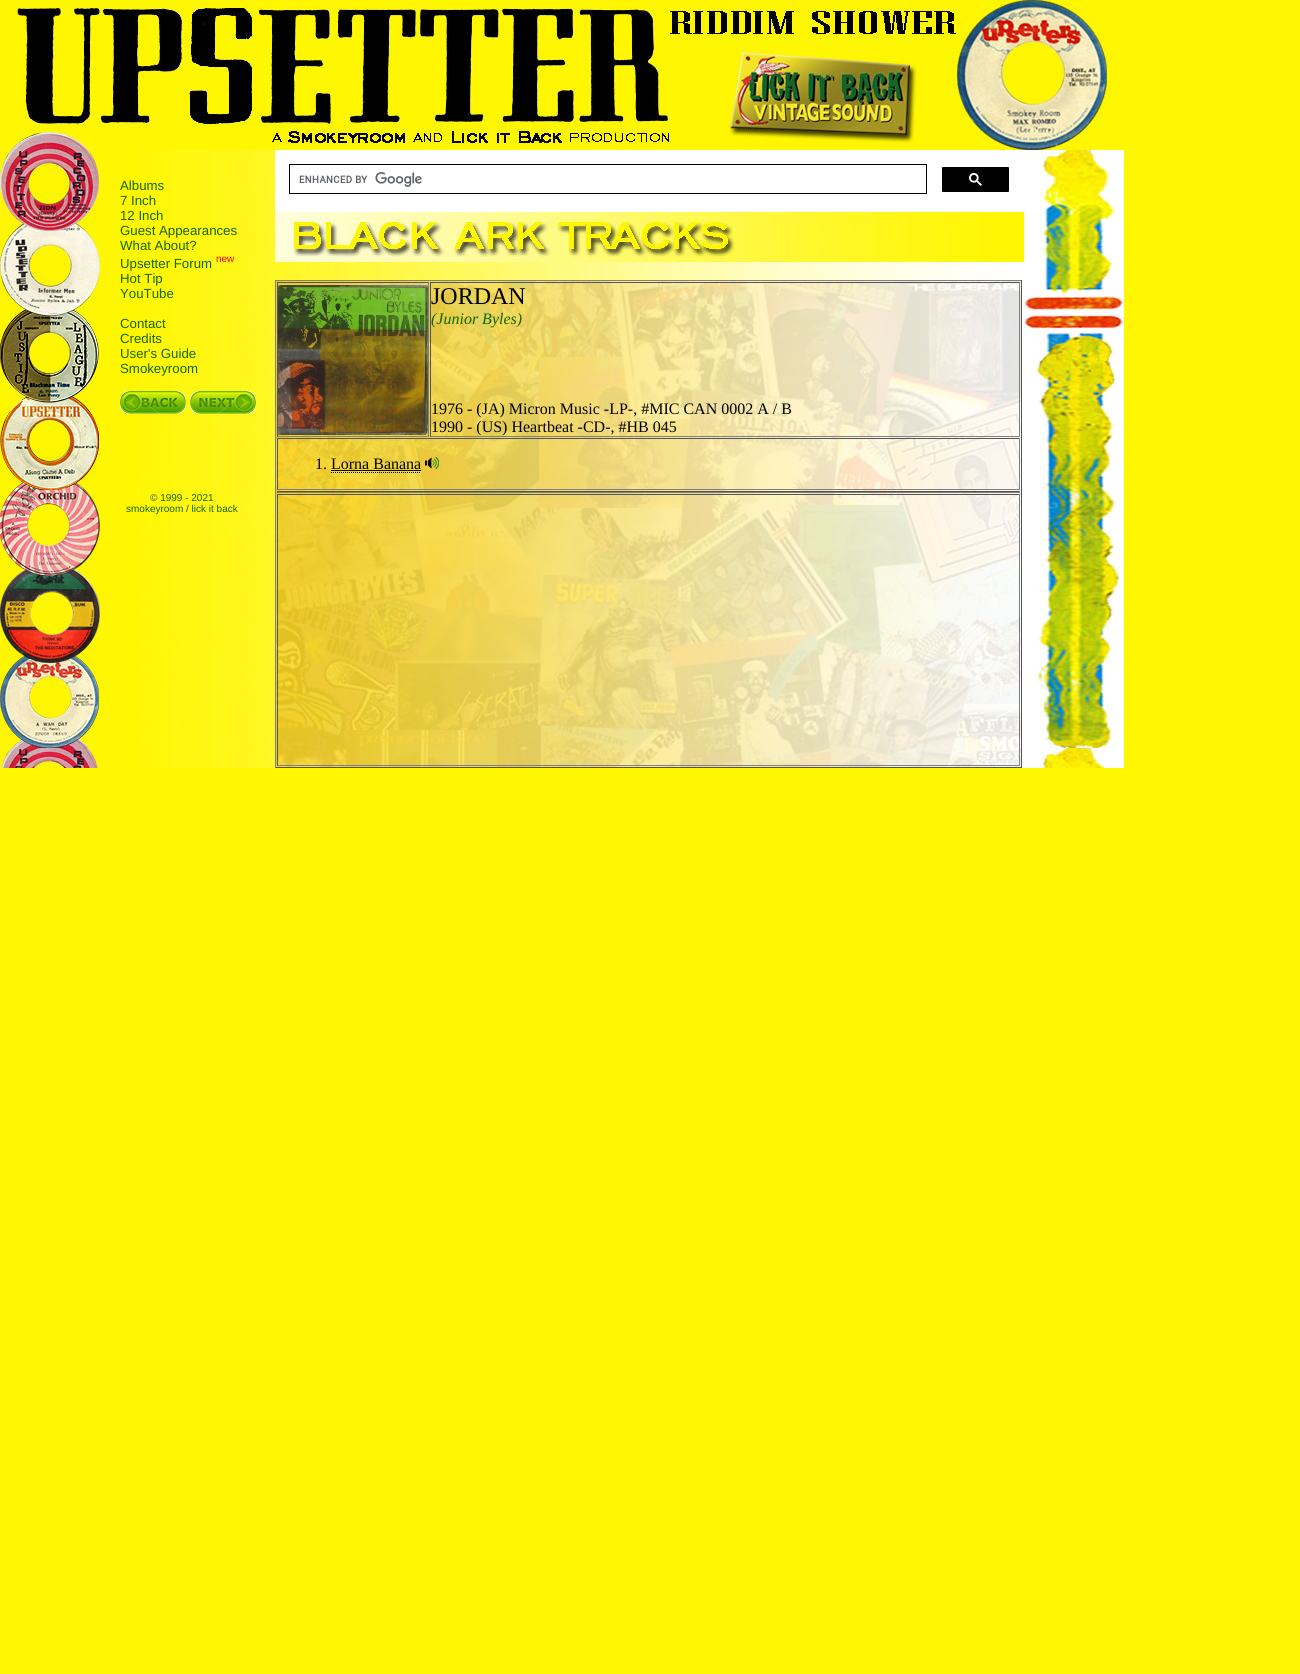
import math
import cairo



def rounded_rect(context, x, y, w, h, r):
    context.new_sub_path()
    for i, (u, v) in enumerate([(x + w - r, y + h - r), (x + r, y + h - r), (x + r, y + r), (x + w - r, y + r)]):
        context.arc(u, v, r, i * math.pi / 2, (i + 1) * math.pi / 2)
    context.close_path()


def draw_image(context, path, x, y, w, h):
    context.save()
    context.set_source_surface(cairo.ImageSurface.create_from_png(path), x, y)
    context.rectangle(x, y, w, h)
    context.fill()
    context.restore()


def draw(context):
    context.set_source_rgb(1, 247 / 255, 1 / 255)
    context.paint()
    draw_image(context, "images/1.png", 8, 0, 1104, 150)
    draw_image(context, "images/2.png", 0, 150, 100, 618)
    draw_image(context, "images/3.png", 137, 150, 138, 618)
    draw_image(context, "images/4.png", 120, 391, 66, 23)
    draw_image(context, "images/5.png", 190, 391, 66, 23)
    draw_image(context, "images/6.png", 275, 262, 749, 506)
    context.set_source_rgb(1, 1, 1)
    context.rectangle(275, 150, 749, 62)
    context.fill()
    context.rectangle(289.5, 164.5, 637, 29)
    context.set_source_rgb(0, 0, 0)
    context.set_line_width(1)
    context.stroke()
    draw_image(context, "images/7.png", 299, 172, 123, 15)
    rounded_rect(context, 941.5, 166.5, 68, 26, 1.5)
    context.fill_preserve()
    context.set_source_rgb(1, 1, 1)
    context.stroke()
    draw_image(context, "images/8.png", 969, 173, 13, 13)
    draw_image(context, "images/9.png", 275, 212, 749, 50)
    draw_image(context, "images/10.png", 276, 281, 745, 486)
    context.set_source_rgb(128 / 255, 128 / 255, 128 / 255)
    context.rectangle(275, 280, 747, 1)
    context.fill()
    context.set_source_rgb(85 / 255, 85 / 255, 85 / 255)
    context.rectangle(1021, 280, 1, 488)
    context.fill()
    context.rectangle(275, 767, 747, 1)
    context.fill()
    context.set_source_rgb(128 / 255, 128 / 255, 128 / 255)
    context.rectangle(275, 280, 1, 488)
    context.fill()
    context.set_source_rgb(85 / 255, 85 / 255, 85 / 255)
    context.rectangle(277, 282, 152, 1)
    context.fill()
    context.set_source_rgb(128 / 255, 128 / 255, 128 / 255)
    context.rectangle(428, 282, 1, 155)
    context.fill()
    context.rectangle(277, 436, 152, 1)
    context.fill()
    context.set_source_rgb(85 / 255, 85 / 255, 85 / 255)
    context.rectangle(277, 282, 1, 155)
    context.fill()
    draw_image(context, "images/11.png", 278, 285, 150, 150)
    context.rectangle(430, 282, 590, 1)
    context.fill()
    context.set_source_rgb(128 / 255, 128 / 255, 128 / 255)
    context.rectangle(1019, 282, 1, 155)
    context.fill()
    context.rectangle(430, 436, 590, 1)
    context.fill()
    context.set_source_rgb(85 / 255, 85 / 255, 85 / 255)
    context.rectangle(430, 282, 1, 155)
    context.fill()
    context.rectangle(277, 438, 743, 1)
    context.fill()
    context.set_source_rgb(128 / 255, 128 / 255, 128 / 255)
    context.rectangle(1019, 438, 1, 52)
    context.fill()
    context.rectangle(277, 489, 743, 1)
    context.fill()
    context.set_source_rgb(85 / 255, 85 / 255, 85 / 255)
    context.rectangle(277, 438, 1, 52)
    context.fill()
    draw_image(context, "images/12.png", 425, 457, 14, 12)
    context.set_source_rgb(0, 0, 0)
    context.rectangle(331, 470, 90, 1)
    context.fill()
    context.new_path()
    context.move_to(331, 472.5)
    context.line_to(421, 472.5)
    context.set_dash([1, 1])
    context.stroke()
    context.set_source_rgb(85 / 255, 85 / 255, 85 / 255)
    context.rectangle(277, 491, 743, 1)
    context.fill()
    context.set_source_rgb(128 / 255, 128 / 255, 128 / 255)
    context.rectangle(1019, 491, 1, 2)
    context.fill()
    context.rectangle(277, 492, 743, 1)
    context.fill()
    context.set_source_rgb(85 / 255, 85 / 255, 85 / 255)
    context.rectangle(277, 491, 1, 2)
    context.fill()
    context.rectangle(277, 494, 743, 1)
    context.fill()
    context.set_source_rgb(128 / 255, 128 / 255, 128 / 255)
    context.rectangle(1019, 494, 1, 272)
    context.fill()
    context.rectangle(277, 765, 743, 1)
    context.fill()
    context.set_source_rgb(85 / 255, 85 / 255, 85 / 255)
    context.rectangle(277, 494, 1, 272)
    context.fill()
    draw_image(context, "images/13.png", 1024, 150, 100, 618)
    context.select_font_face("Liberation Sans")
    context.set_font_size(13.25)
    context.set_source_rgb(19 / 255, 103 / 255, 0)
    context.move_to(120, 190)
    context.show_text("Albums")
    context.move_to(120, 205)
    context.show_text("7 Inch")
    context.move_to(120, 220)
    context.show_text("12 Inch")
    context.move_to(120, 235)
    context.show_text("Guest Appearances")
    context.move_to(120, 250)
    context.show_text("What About?")
    context.move_to(120, 268)
    context.show_text("Upsetter Forum")
    context.set_font_size(10)
    context.set_source_rgb(1, 0, 0)
    context.move_to(216, 262)
    context.show_text("new")
    context.set_font_size(13.25)
    context.set_source_rgb(19 / 255, 103 / 255, 0)
    context.move_to(120, 283)
    context.show_text("Hot Tip")
    context.move_to(120, 298)
    context.show_text("YouTube")
    context.move_to(120, 328)
    context.show_text("Contact")
    context.move_to(120, 343)
    context.show_text("Credits")
    context.move_to(120, 358)
    context.show_text("User's Guide")
    context.move_to(120, 373)
    context.show_text("Smokeyroom")
    context.set_font_size(10)
    context.move_to(150, 501)
    context.show_text("© 1999 - 2021")
    context.move_to(126, 512)
    context.show_text("smokeyroom / lick it back")
    context.select_font_face("Liberation Serif")
    context.set_font_size(24)
    context.set_source_rgb(0, 0, 0)
    context.move_to(431, 304)
    context.show_text("JORDAN")
    context.select_font_face("Liberation Serif", cairo.FontSlant.ITALIC)
    context.set_font_size(16)
    context.set_source_rgb(19 / 255, 103 / 255, 0)
    context.move_to(431, 324)
    context.show_text("(Junior Byles)")
    context.select_font_face("Liberation Serif")
    context.set_source_rgb(0, 0, 0)
    context.move_to(431, 414)
    context.show_text("1976 - (JA) Micron Music -LP-, #MIC CAN 0002 A / B")
    context.move_to(431, 432)
    context.show_text("1990 - (US) Heartbeat -CD-, #HB 045")
    context.move_to(315, 469)
    context.show_text("1. Lorna Banana")


surface = cairo.ImageSurface(cairo.Format.RGB24, 1300, 1674)
context = cairo.Context(surface)
options = cairo.FontOptions()
options.set_hint_metrics(cairo.HintMetrics.OFF)
options.set_hint_style(cairo.HintStyle.NONE)
context.set_font_options(options)
context.set_miter_limit(4)
draw(context)
surface.write_to_png("out.png")
